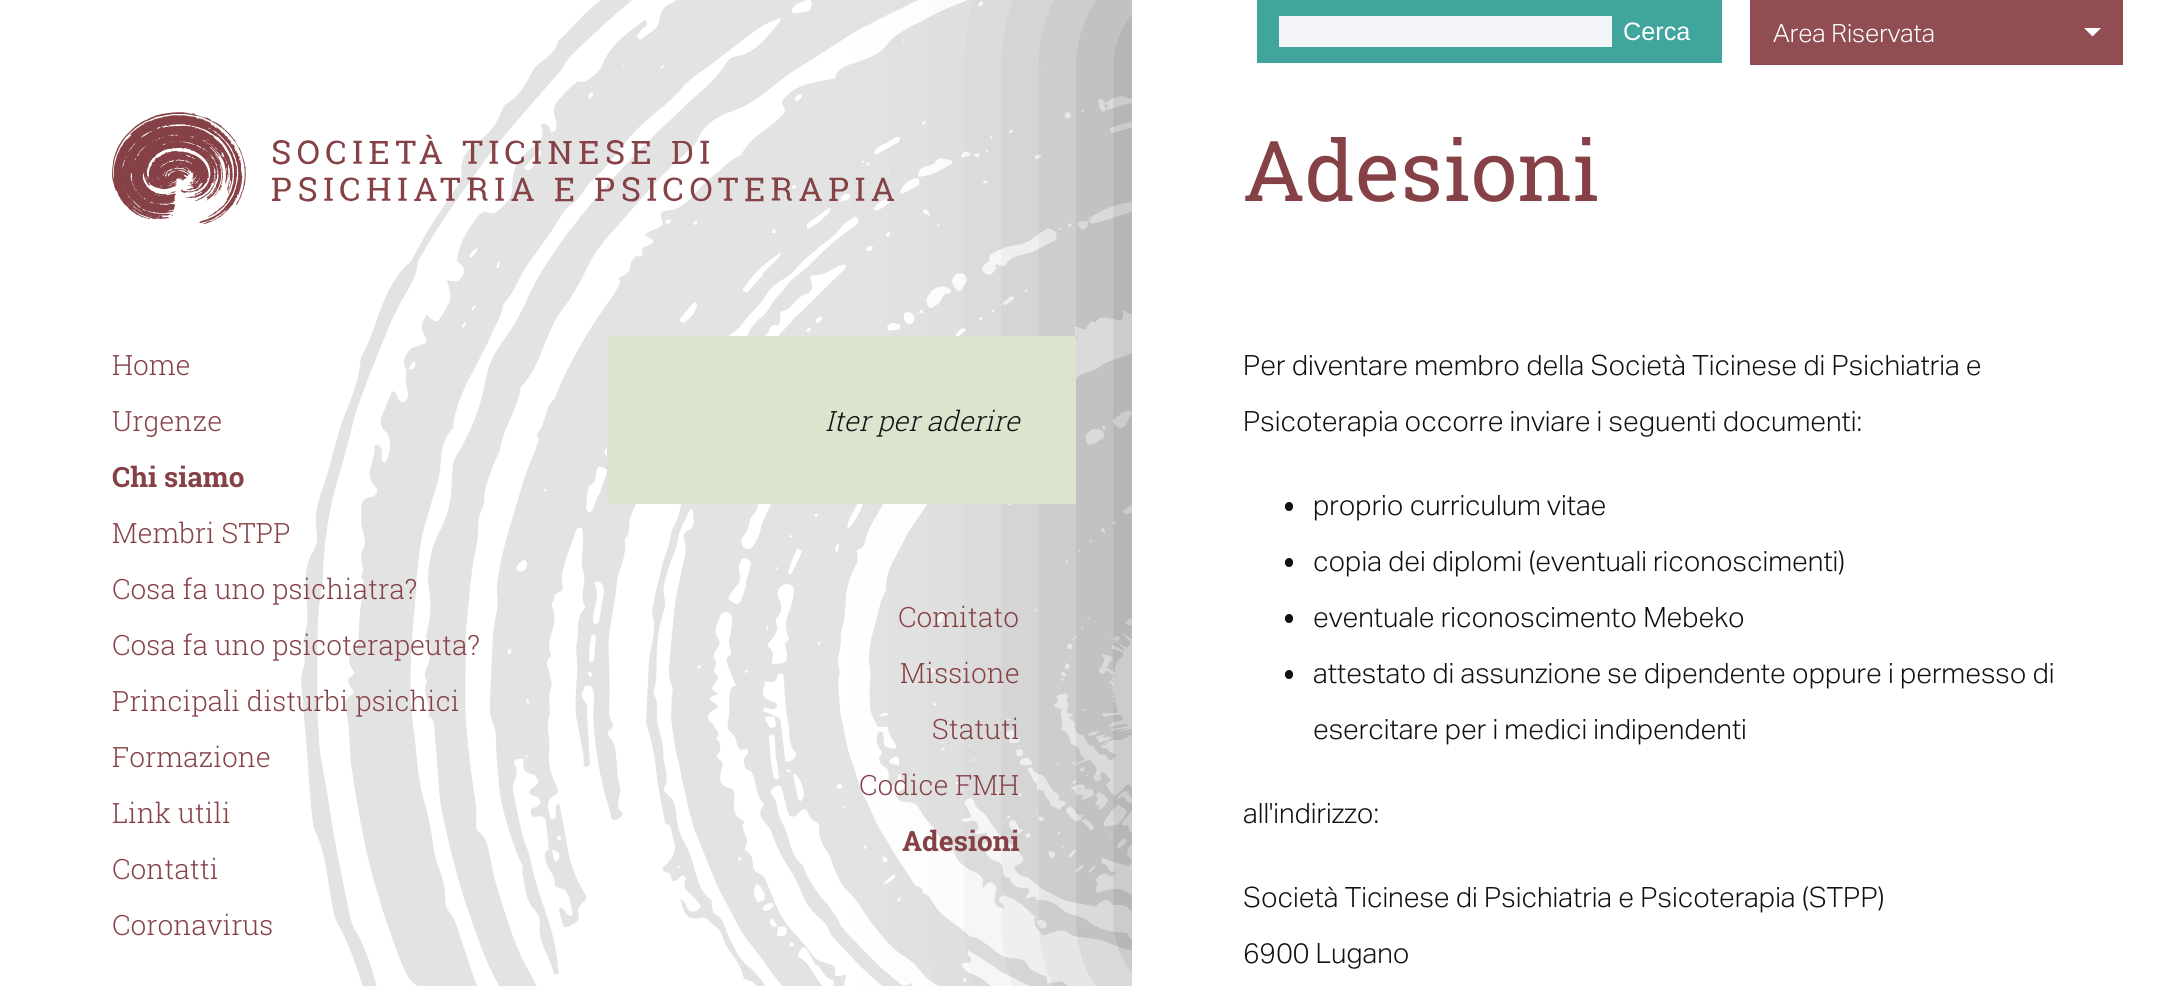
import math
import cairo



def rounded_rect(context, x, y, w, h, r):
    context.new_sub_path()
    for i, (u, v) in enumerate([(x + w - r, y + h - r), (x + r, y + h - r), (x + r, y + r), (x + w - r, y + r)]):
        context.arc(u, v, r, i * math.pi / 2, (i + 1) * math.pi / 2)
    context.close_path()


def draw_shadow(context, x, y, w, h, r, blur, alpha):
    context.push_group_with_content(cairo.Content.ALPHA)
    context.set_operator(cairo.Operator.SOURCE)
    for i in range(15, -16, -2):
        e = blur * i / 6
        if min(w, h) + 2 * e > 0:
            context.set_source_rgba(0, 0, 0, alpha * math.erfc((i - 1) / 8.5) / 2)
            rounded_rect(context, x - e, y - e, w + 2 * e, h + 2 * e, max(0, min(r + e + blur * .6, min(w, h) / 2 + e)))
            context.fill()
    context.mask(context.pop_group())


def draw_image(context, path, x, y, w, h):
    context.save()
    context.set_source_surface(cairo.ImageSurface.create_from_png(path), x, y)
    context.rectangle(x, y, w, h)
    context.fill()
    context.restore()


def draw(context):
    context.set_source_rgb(1, 1, 1)
    context.paint()
    draw_image(context, "images/1.png", 301, 0, 831, 986)
    draw_image(context, "images/2.png", 112, 112, 782, 112)
    context.set_source_rgb(0, 0, 0)
    draw_shadow(context, 1132, 0, 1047, 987, 0, 112, 0.4)
    context.set_source_rgb(1, 1, 1)
    context.rectangle(1132, 0, 1046, 986)
    context.fill()
    context.set_source_rgb(63 / 255, 165 / 255, 157 / 255)
    context.rectangle(1257, 0, 465, 63)
    context.fill()
    context.set_source_rgb(244 / 255, 245 / 255, 248 / 255)
    context.rectangle(1279, 16, 333, 31)
    context.fill()
    context.set_source_rgb(144 / 255, 78 / 255, 83 / 255)
    context.rectangle(1750, 0, 373, 65)
    context.fill()
    context.set_source_rgb(1, 1, 1)
    context.new_path()
    context.move_to(2084, 28)
    context.line_to(2101, 28)
    context.line_to(2092.5, 36.5)
    context.close_path()
    context.fill()
    context.set_source_rgb(221 / 255, 228 / 255, 206 / 255)
    context.rectangle(607, 336, 469, 168)
    context.fill()
    context.set_source_rgb(17 / 255, 17 / 255, 17 / 255)
    rounded_rect(context, 1285, 502, 8, 9, 4)
    context.fill()
    rounded_rect(context, 1285, 558, 8, 9, 4)
    context.fill()
    rounded_rect(context, 1285, 614, 8, 9, 4)
    context.fill()
    rounded_rect(context, 1285, 670, 8, 9, 4)
    context.fill()
    context.select_font_face("Liberation Sans")
    context.set_font_size(25.25)
    context.set_source_rgb(1, 1, 1)
    context.move_to(1623, 40)
    context.show_text("Cerca")
    context.select_font_face("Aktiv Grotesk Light")
    context.move_to(1773, 42)
    context.show_text("Area Riservata")
    context.select_font_face("Roboto Slab Light")
    context.set_font_size(28)
    context.set_source_rgb(133 / 255, 65 / 255, 70 / 255)
    context.move_to(112, 375)
    context.show_text("Home")
    context.move_to(112, 431)
    context.show_text("Urgenze")
    context.select_font_face("Roboto Slab", cairo.FontSlant.NORMAL, cairo.FontWeight.BOLD)
    context.move_to(112, 487)
    context.show_text("Chi siamo")
    context.select_font_face("Roboto Slab Light")
    context.move_to(112, 543)
    context.show_text("Membri STPP")
    context.move_to(112, 599)
    context.show_text("Cosa fa uno psichiatra?")
    context.move_to(112, 655)
    context.show_text("Cosa fa uno psicoterapeuta?")
    context.move_to(112, 711)
    context.show_text("Principali disturbi psichici")
    context.move_to(112, 767)
    context.show_text("Formazione")
    context.move_to(112, 823)
    context.show_text("Link utili")
    context.move_to(112, 879)
    context.show_text("Contatti")
    context.move_to(112, 935)
    context.show_text("Coronavirus")
    context.select_font_face("Roboto Slab Light", cairo.FontSlant.ITALIC)
    context.set_source_rgb(17 / 255, 17 / 255, 17 / 255)
    context.move_to(825, 431)
    context.show_text("Iter per aderire")
    context.select_font_face("Roboto Slab Light")
    context.set_source_rgb(133 / 255, 65 / 255, 70 / 255)
    context.move_to(898, 627)
    context.show_text("Comitato")
    context.move_to(900, 683)
    context.show_text("Missione")
    context.move_to(932, 739)
    context.show_text("Statuti")
    context.move_to(859, 795)
    context.show_text("Codice FMH")
    context.select_font_face("Roboto Slab", cairo.FontSlant.NORMAL, cairo.FontWeight.BOLD)
    context.move_to(902, 851)
    context.show_text("Adesioni")
    context.select_font_face("Roboto Slab")
    context.set_font_size(84)
    context.move_to(1243, 201)
    context.show_text("Adesioni")
    context.select_font_face("Aktiv Grotesk Light")
    context.set_font_size(28)
    context.set_source_rgb(17 / 255, 17 / 255, 17 / 255)
    context.move_to(1243, 375)
    context.show_text("Per diventare membro della Società Ticinese di Psichiatria e")
    context.move_to(1243, 431)
    context.show_text("Psicoterapia occorre inviare i seguenti documenti:")
    context.move_to(1313, 515)
    context.show_text("proprio curriculum vitae")
    context.move_to(1313, 571)
    context.show_text("copia dei diplomi (eventuali riconoscimenti)")
    context.move_to(1313, 627)
    context.show_text("eventuale riconoscimento Mebeko")
    context.move_to(1313, 683)
    context.show_text("attestato di assunzione se dipendente oppure i permesso di")
    context.move_to(1313, 739)
    context.show_text("esercitare per i medici indipendenti")
    context.move_to(1243, 823)
    context.show_text("all'indirizzo:")
    context.move_to(1243, 907)
    context.show_text("Società Ticinese di Psichiatria e Psicoterapia (STPP)")
    context.move_to(1243, 963)
    context.show_text("6900 Lugano")


surface = cairo.ImageSurface(cairo.Format.RGB24, 2178, 986)
context = cairo.Context(surface)
options = cairo.FontOptions()
options.set_hint_metrics(cairo.HintMetrics.OFF)
options.set_hint_style(cairo.HintStyle.NONE)
context.set_font_options(options)
context.set_miter_limit(4)
draw(context)
surface.write_to_png("out.png")
